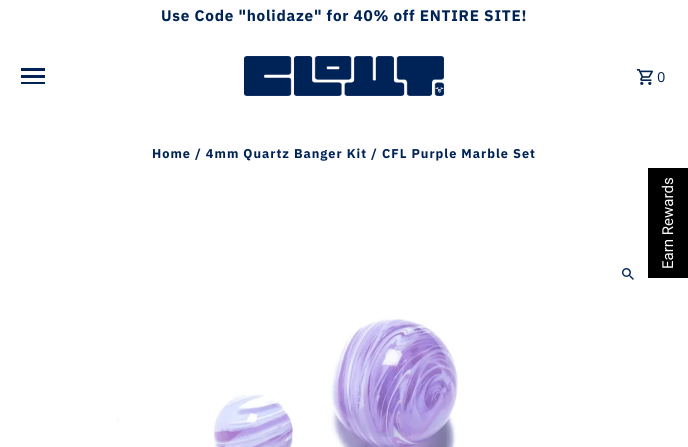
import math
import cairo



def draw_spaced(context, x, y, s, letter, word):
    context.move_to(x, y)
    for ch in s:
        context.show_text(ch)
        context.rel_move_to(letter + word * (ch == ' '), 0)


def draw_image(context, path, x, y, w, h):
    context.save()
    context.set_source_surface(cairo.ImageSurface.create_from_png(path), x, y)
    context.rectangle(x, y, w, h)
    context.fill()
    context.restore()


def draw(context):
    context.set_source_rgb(1, 1, 1)
    context.paint()
    context.set_source_rgb(0, 35 / 255, 86 / 255)
    context.rectangle(21, 82, 24, 2)
    context.fill()
    context.rectangle(21, 75, 24, 3)
    context.fill()
    context.rectangle(21, 68, 24, 3)
    context.fill()
    draw_image(context, "images/1.png", 244, 56, 200, 40)
    draw_image(context, "images/2.png", 637, 69, 16, 16)
    draw_image(context, "images/3.png", 622, 268, 12, 12)
    draw_image(context, "images/4.png", 116, 319, 342, 128)
    context.set_source_rgb(0, 0, 0)
    context.rectangle(648, 168, 40, 110)
    context.fill()
    context.select_font_face("IBM Plex Sans", cairo.FontSlant.NORMAL, cairo.FontWeight.BOLD)
    context.set_font_size(15.3)
    context.set_source_rgb(0, 35 / 255, 86 / 255)
    draw_spaced(context, 161, 21, "Use Code \"holidaze\" for 40% off ENTIRE SITE!", 0.75, 0)
    context.select_font_face("IBM Plex Sans")
    context.set_font_size(14)
    draw_spaced(context, 657, 82, "0", 1, 0)
    context.select_font_face("IBM Plex Sans", cairo.FontSlant.NORMAL, cairo.FontWeight.BOLD)
    context.set_font_size(12.75)
    draw_spaced(context, 152, 158, "Home / 4mm Quartz Banger Kit / CFL Purple Marble Set", 1, 0)
    context.select_font_face("Roboto")
    context.set_font_size(15)
    context.set_source_rgb(1, 1, 1)
    context.save()
    context.translate(673, 269)
    context.rotate(-90 * math.pi / 180)
    context.move_to(0, 0)
    context.show_text("Earn Rewards")
    context.restore()


surface = cairo.ImageSurface(cairo.Format.RGB24, 688, 447)
context = cairo.Context(surface)
options = cairo.FontOptions()
options.set_hint_metrics(cairo.HintMetrics.OFF)
options.set_hint_style(cairo.HintStyle.NONE)
context.set_font_options(options)
context.set_miter_limit(4)
draw(context)
surface.write_to_png("out.png")
